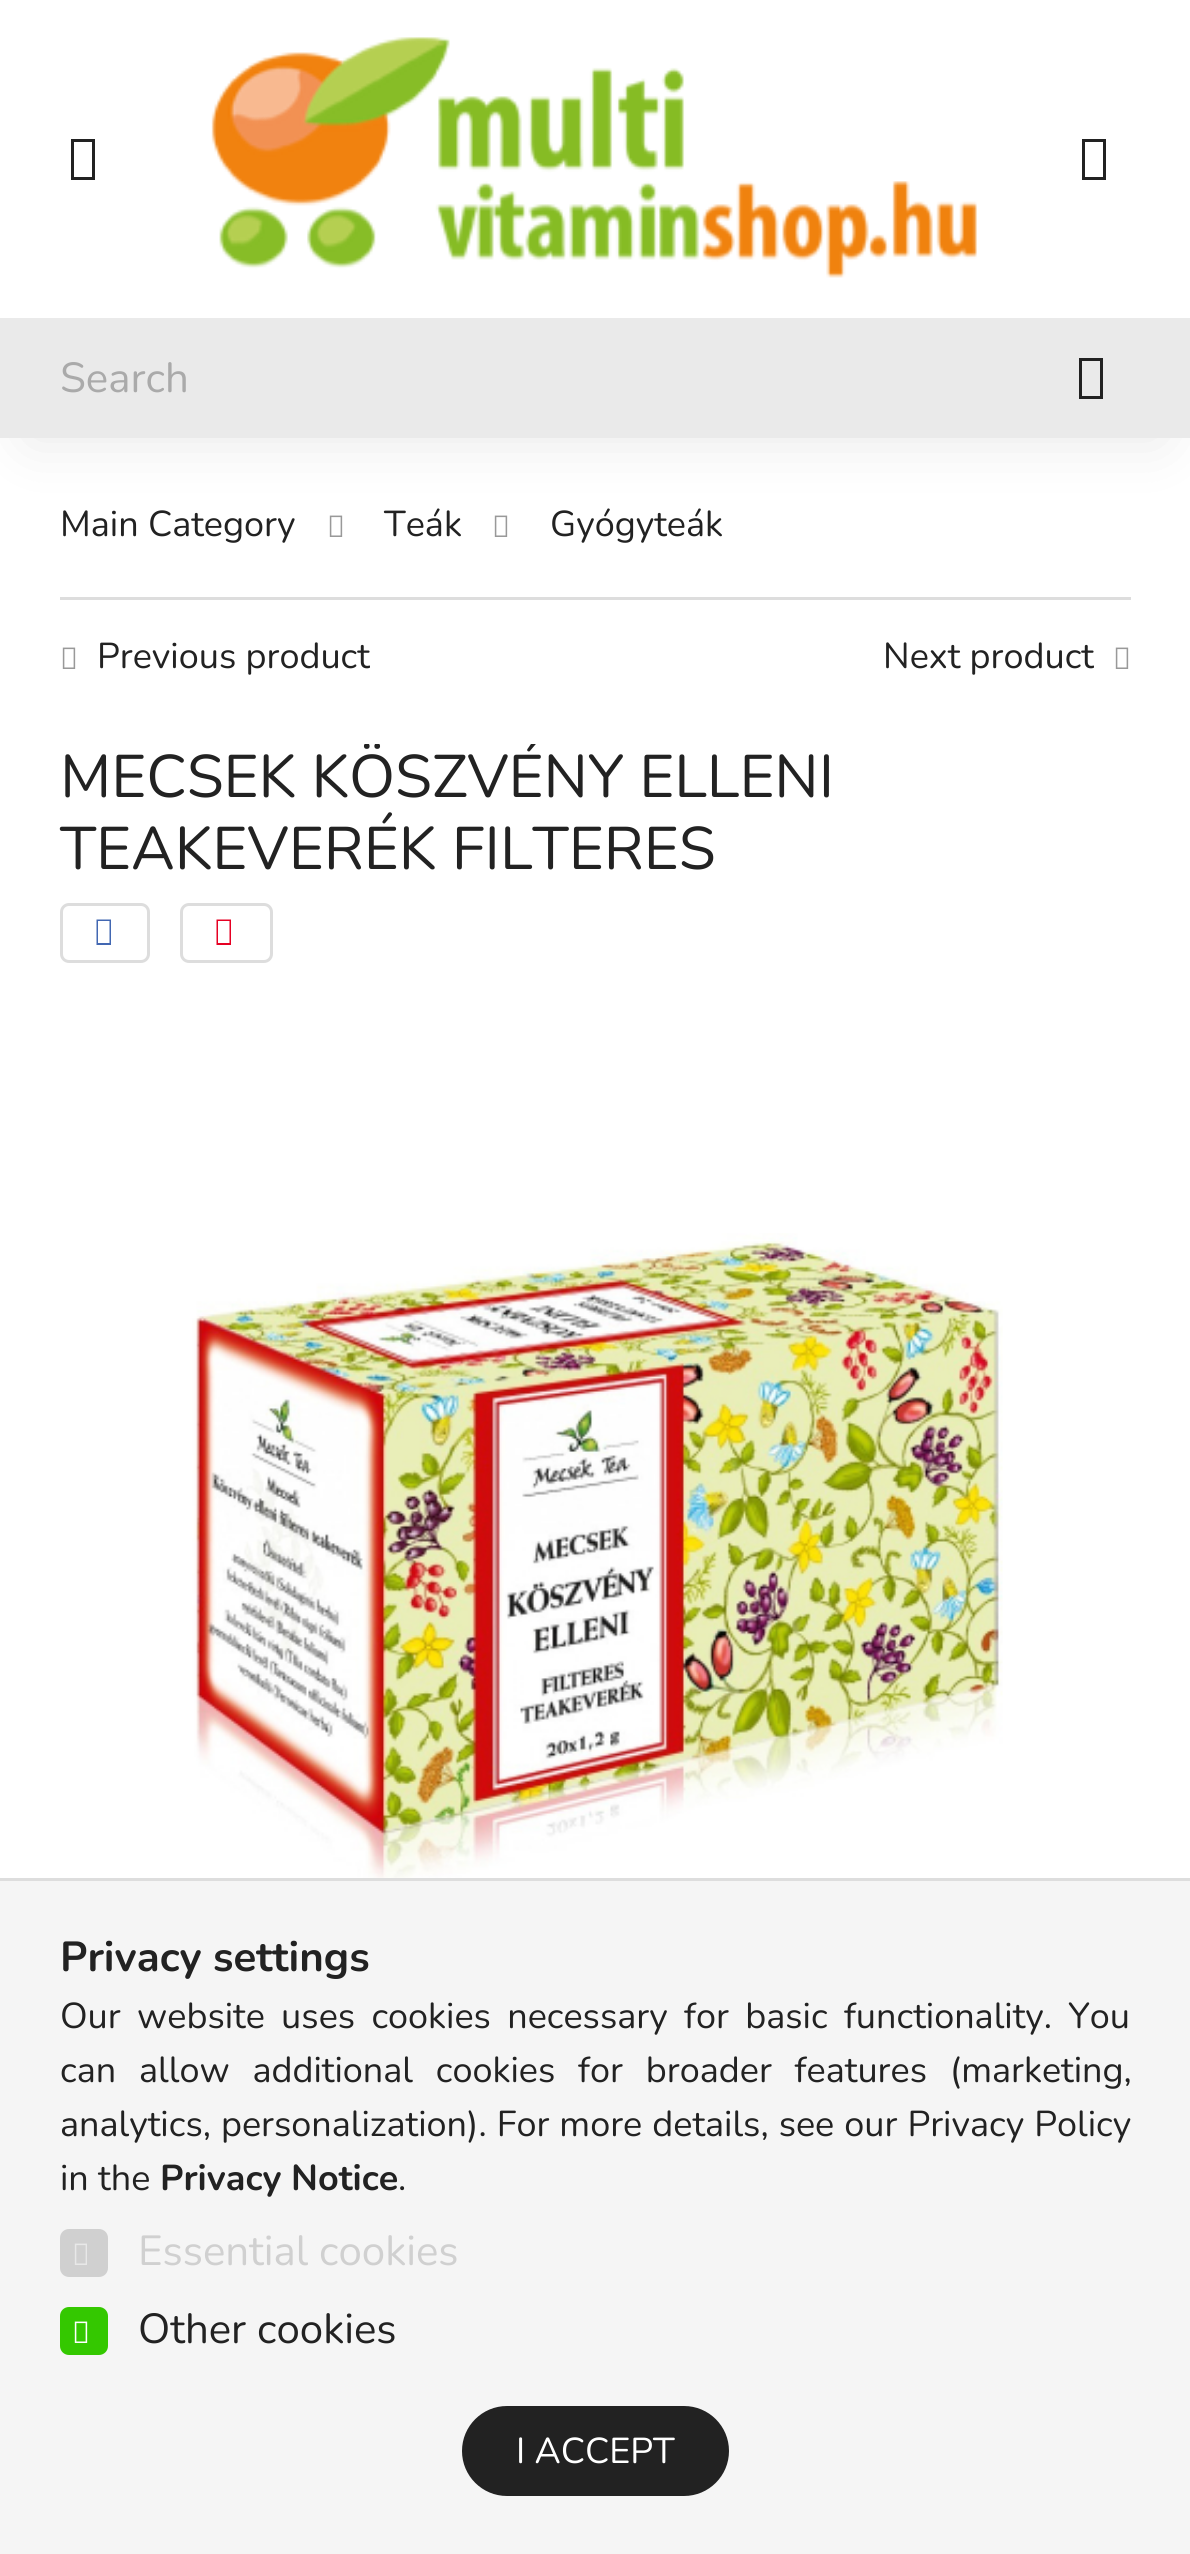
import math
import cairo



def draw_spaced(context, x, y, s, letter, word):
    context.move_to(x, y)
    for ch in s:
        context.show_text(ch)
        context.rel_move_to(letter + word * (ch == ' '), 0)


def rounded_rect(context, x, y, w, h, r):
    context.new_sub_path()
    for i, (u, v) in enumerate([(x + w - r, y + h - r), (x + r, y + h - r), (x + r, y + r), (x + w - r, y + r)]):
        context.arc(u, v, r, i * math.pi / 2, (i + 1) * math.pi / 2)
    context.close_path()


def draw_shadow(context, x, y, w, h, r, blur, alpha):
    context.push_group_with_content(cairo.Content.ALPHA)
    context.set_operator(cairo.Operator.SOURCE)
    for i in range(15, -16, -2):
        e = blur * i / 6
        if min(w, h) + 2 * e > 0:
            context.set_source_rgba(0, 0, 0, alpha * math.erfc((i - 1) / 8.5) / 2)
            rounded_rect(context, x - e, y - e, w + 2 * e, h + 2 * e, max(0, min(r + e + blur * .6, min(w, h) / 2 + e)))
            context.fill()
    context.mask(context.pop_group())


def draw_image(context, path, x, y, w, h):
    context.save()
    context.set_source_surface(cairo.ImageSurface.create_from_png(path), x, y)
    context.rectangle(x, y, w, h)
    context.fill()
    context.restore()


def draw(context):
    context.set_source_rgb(1, 1, 1)
    context.paint()
    context.set_source_rgb(34 / 255, 34 / 255, 34 / 255)
    context.new_path()
    context.move_to(71, 180)
    context.line_to(71, 139)
    context.line_to(95, 139)
    context.line_to(95, 180)
    context.close_path()
    context.move_to(74, 177)
    context.line_to(92, 177)
    context.line_to(92, 142)
    context.line_to(74, 142)
    context.close_path()
    context.fill()
    draw_image(context, "images/1.png", 211, 37, 766, 241)
    context.new_path()
    context.move_to(1082, 180)
    context.line_to(1082, 139)
    context.line_to(1106, 139)
    context.line_to(1106, 180)
    context.close_path()
    context.move_to(1085, 177)
    context.line_to(1103, 177)
    context.line_to(1103, 142)
    context.line_to(1085, 142)
    context.close_path()
    context.fill()
    draw_image(context, "images/2.png", 329, 515, 14, 22)
    draw_image(context, "images/2.png", 494, 515, 14, 22)
    context.set_source_rgb(0, 0, 0)
    draw_shadow(context, 30, 378, 1131, 60, 0, 30, 0.1)
    context.set_source_rgb(234 / 255, 234 / 255, 234 / 255)
    context.rectangle(0, 318, 1190, 120)
    context.fill()
    context.set_source_rgb(34 / 255, 34 / 255, 34 / 255)
    context.new_path()
    context.move_to(1079, 399)
    context.line_to(1079, 358)
    context.line_to(1103, 358)
    context.line_to(1103, 399)
    context.close_path()
    context.move_to(1082, 396)
    context.line_to(1100, 396)
    context.line_to(1100, 361)
    context.line_to(1082, 361)
    context.close_path()
    context.fill()
    context.set_source_rgb(221 / 255, 221 / 255, 221 / 255)
    context.rectangle(60, 597, 1071, 3)
    context.fill()
    draw_image(context, "images/2.png", 62, 647, 14, 22)
    draw_image(context, "images/2.png", 1115, 647, 14, 22)
    rounded_rect(context, 61.5, 904.5, 87, 57, 7.5)
    context.set_line_width(3)
    context.stroke()
    context.set_source_rgb(66 / 255, 103 / 255, 178 / 255)
    context.new_path()
    context.move_to(96.5, 945)
    context.line_to(96.5, 919.5)
    context.line_to(111, 919.5)
    context.line_to(111, 945)
    context.close_path()
    context.move_to(98, 943)
    context.line_to(109.5, 943)
    context.line_to(109.5, 921)
    context.line_to(98, 921)
    context.close_path()
    context.fill()
    rounded_rect(context, 181.5, 904.5, 90, 57, 7.5)
    context.set_source_rgb(221 / 255, 221 / 255, 221 / 255)
    context.stroke()
    context.set_source_rgb(230 / 255, 0, 35 / 255)
    context.new_path()
    context.move_to(216.5, 945)
    context.line_to(216.5, 919.5)
    context.line_to(231, 919.5)
    context.line_to(231, 945)
    context.close_path()
    context.move_to(218, 943)
    context.line_to(229.5, 943)
    context.line_to(229.5, 921)
    context.line_to(218, 921)
    context.close_path()
    context.fill()
    draw_image(context, "images/3.png", 192, 1233, 811, 645)
    context.set_source_rgb(245 / 255, 245 / 255, 245 / 255)
    context.rectangle(0, 1881, 1190, 673)
    context.fill()
    context.set_source_rgb(221 / 255, 221 / 255, 221 / 255)
    context.rectangle(0, 1878, 1190, 3)
    context.fill()
    context.set_source_rgb(208 / 255, 208 / 255, 208 / 255)
    rounded_rect(context, 61.5, 2230.5, 45, 45, 7.5)
    context.fill_preserve()
    context.stroke()
    draw_image(context, "images/4.png", 74, 2243, 13, 22)
    context.set_source_rgb(52 / 255, 200 / 255, 0)
    rounded_rect(context, 61.5, 2308.5, 45, 45, 7.5)
    context.fill_preserve()
    context.stroke()
    draw_image(context, "images/5.png", 74, 2321, 14, 22)
    context.set_source_rgb(34 / 255, 34 / 255, 34 / 255)
    rounded_rect(context, 463.5, 2407.5, 264, 87, 43.5)
    context.fill_preserve()
    context.stroke()
    context.select_font_face("Nunito")
    context.set_font_size(42)
    context.set_source_rgb(170 / 255, 170 / 255, 170 / 255)
    context.move_to(60, 392)
    context.show_text("Search")
    context.set_font_size(36)
    context.set_source_rgb(34 / 255, 34 / 255, 34 / 255)
    context.move_to(60, 536)
    context.show_text("Main Category")
    context.move_to(384, 536)
    context.show_text("Teák")
    context.move_to(550, 536)
    context.show_text("Gyógyteák")
    context.move_to(97, 668)
    context.show_text("Previous product")
    context.move_to(883, 668)
    context.show_text("Next product")
    context.save()
    context.rectangle(60, 744, 1071, 144)
    context.clip()
    context.set_font_size(60)
    context.move_to(60, 797)
    context.show_text("MECSEK KÖSZVÉNY ELLENI")
    context.restore()
    context.set_font_size(60)
    context.move_to(60, 869)
    context.show_text("TEAKEVERÉK FILTERES")
    context.select_font_face("Nunito", cairo.FontSlant.NORMAL, cairo.FontWeight.BOLD)
    context.set_font_size(42)
    context.move_to(60, 1971)
    context.show_text("Privacy settings")
    context.select_font_face("Nunito")
    context.set_font_size(36)
    draw_spaced(context, 60, 2028, "Our website uses cookies necessary for basic functionality. You", 0, 7)
    draw_spaced(context, 60, 2082, "can allow additional cookies for broader features (marketing,", 0, 13.5)
    draw_spaced(context, 60, 2136, "analytics, personalization). For more details, see our Privacy Policy", 0, 0.75)
    context.move_to(60, 2190)
    context.show_text("in the")
    context.select_font_face("Nunito", cairo.FontSlant.NORMAL, cairo.FontWeight.BOLD)
    context.move_to(160, 2190)
    context.show_text("Privacy Notice")
    context.select_font_face("Nunito")
    context.move_to(398, 2190)
    context.show_text(".")
    context.set_font_size(42)
    context.set_source_rgb(208 / 255, 208 / 255, 208 / 255)
    context.move_to(138, 2265)
    context.show_text("Essential cookies")
    context.set_source_rgb(34 / 255, 34 / 255, 34 / 255)
    context.move_to(138, 2343)
    context.show_text("Other cookies")
    context.set_font_size(36)
    context.set_source_rgb(1, 1, 1)
    context.move_to(516, 2463)
    context.show_text("I ACCEPT")


surface = cairo.ImageSurface(cairo.Format.RGB24, 1190, 2554)
context = cairo.Context(surface)
options = cairo.FontOptions()
options.set_hint_metrics(cairo.HintMetrics.OFF)
options.set_hint_style(cairo.HintStyle.NONE)
context.set_font_options(options)
context.set_miter_limit(4)
draw(context)
surface.write_to_png("out.png")
